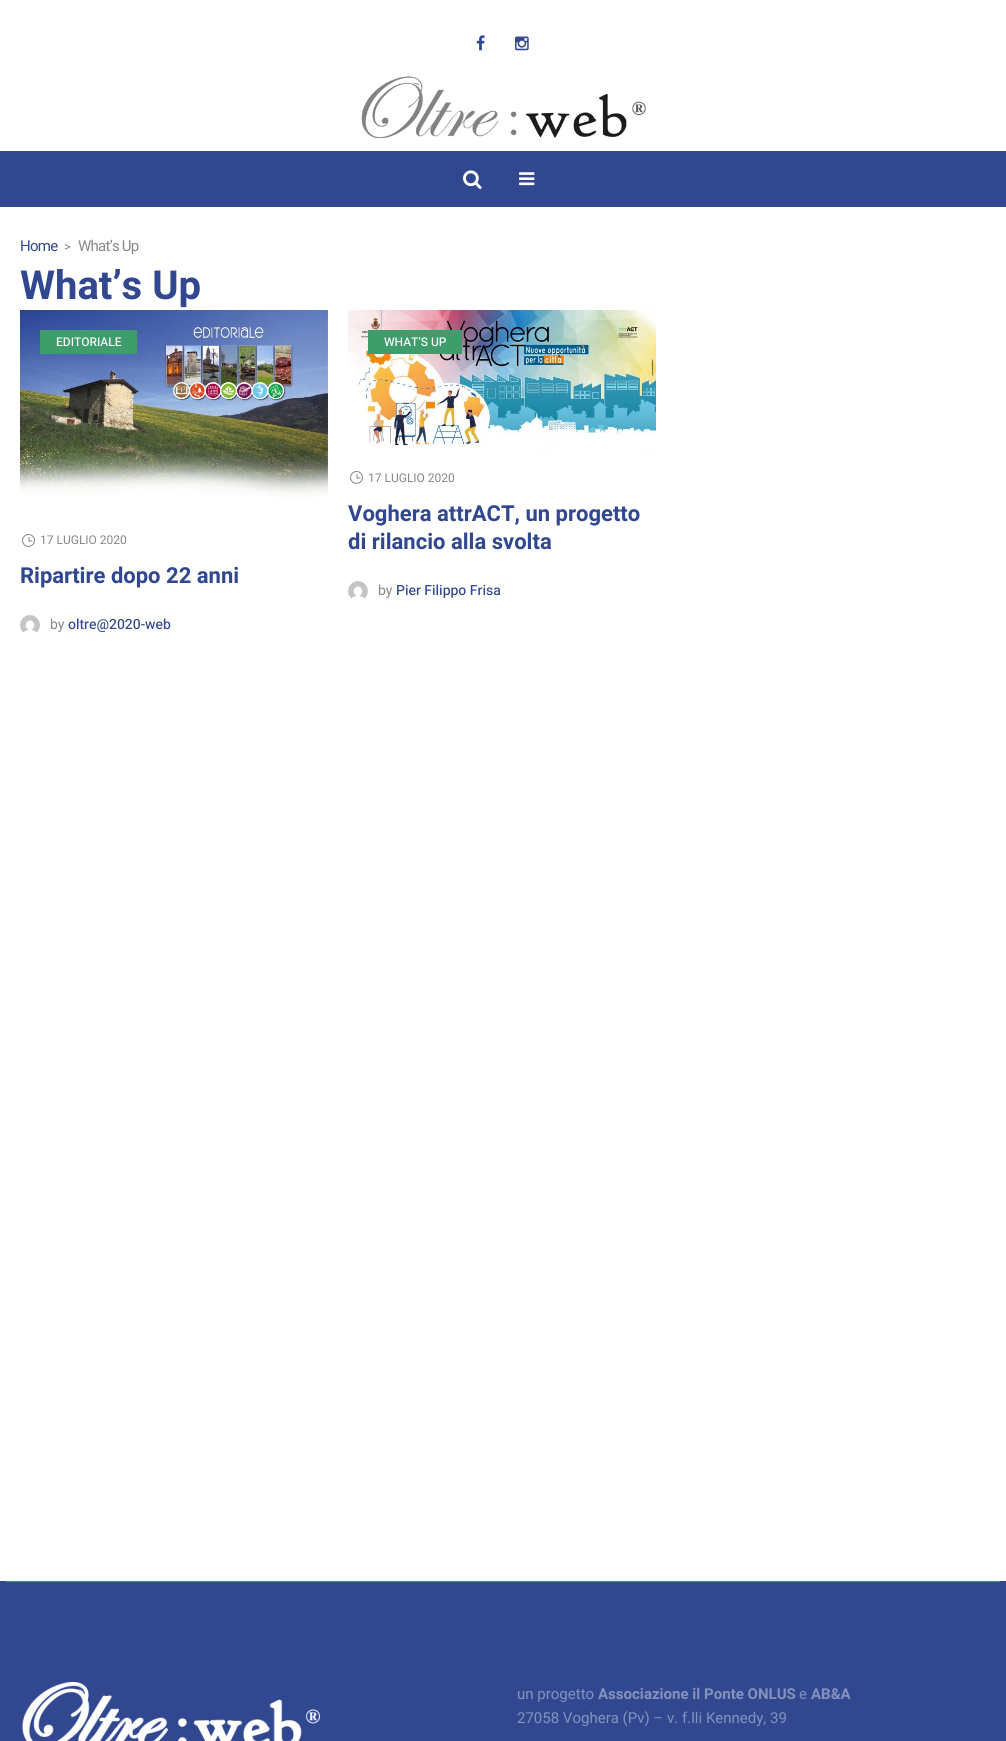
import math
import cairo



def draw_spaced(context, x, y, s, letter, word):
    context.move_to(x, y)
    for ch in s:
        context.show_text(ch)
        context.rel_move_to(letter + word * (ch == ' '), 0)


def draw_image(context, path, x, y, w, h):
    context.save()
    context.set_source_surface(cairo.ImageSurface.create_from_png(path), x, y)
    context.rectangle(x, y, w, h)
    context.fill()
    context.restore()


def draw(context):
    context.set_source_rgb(1, 1, 1)
    context.paint()
    draw_image(context, "images/1.png", 476, 35, 9, 16)
    draw_image(context, "images/2.png", 515, 36, 14, 15)
    draw_image(context, "images/3.png", 361, 76, 285, 63)
    context.set_source_rgb(49 / 255, 72 / 255, 145 / 255)
    context.rectangle(0, 151, 1006, 56)
    context.fill()
    draw_image(context, "images/4.png", 463, 170, 19, 19)
    draw_image(context, "images/5.png", 519, 172, 16, 14)
    draw_image(context, "images/6.png", 20, 310, 308, 187)
    context.set_source_rgb(63 / 255, 157 / 255, 107 / 255)
    context.rectangle(40, 330, 97, 24)
    context.fill()
    draw_image(context, "images/7.png", 22, 534, 13, 13)
    draw_image(context, "images/8.png", 20, 615, 20, 18)
    draw_image(context, "images/9.png", 348, 310, 308, 139)
    context.rectangle(368, 330, 94, 24)
    context.fill()
    draw_image(context, "images/7.png", 350, 471, 13, 13)
    draw_image(context, "images/8.png", 348, 581, 20, 18)
    context.set_source_rgb(49 / 255, 72 / 255, 145 / 255)
    context.rectangle(0, 1581, 1006, 160)
    context.fill()
    context.set_source_rgb(63 / 255, 157 / 255, 107 / 255)
    context.rectangle(6, 1581, 994, 1)
    context.fill()
    draw_image(context, "images/10.png", 22, 1682, 298, 59)
    context.select_font_face("Heebo")
    context.set_font_size(15)
    context.set_source_rgb(49 / 255, 72 / 255, 145 / 255)
    draw_spaced(context, 20, 251, "Home", -0.75, 0)
    context.set_font_size(13)
    context.set_source_rgb(135 / 255, 135 / 255, 135 / 255)
    draw_spaced(context, 64, 251, ">", -0.75, 0)
    context.set_font_size(15)
    draw_spaced(context, 78, 251, "What’s Up", -0.75, 0)
    context.select_font_face("Heebo", cairo.FontSlant.NORMAL, cairo.FontWeight.BOLD)
    context.set_font_size(40)
    context.set_source_rgb(49 / 255, 72 / 255, 145 / 255)
    context.move_to(20, 299)
    context.show_text("What’s Up")
    context.select_font_face("Heebo Medium")
    context.set_font_size(12)
    context.set_source_rgb(1, 1, 1)
    context.move_to(56, 346)
    context.show_text("EDITORIALE")
    context.select_font_face("Heebo")
    context.set_source_rgb(135 / 255, 135 / 255, 135 / 255)
    context.move_to(40, 544)
    context.show_text("17 LUGLIO 2020")
    context.select_font_face("Heebo", cairo.FontSlant.NORMAL, cairo.FontWeight.BOLD)
    context.set_font_size(22)
    context.set_source_rgb(49 / 255, 72 / 255, 145 / 255)
    context.move_to(20, 583)
    context.show_text("Ripartire dopo 22 anni")
    context.select_font_face("Heebo")
    context.set_font_size(14)
    context.set_source_rgb(135 / 255, 135 / 255, 135 / 255)
    context.move_to(50, 629)
    context.show_text("by")
    context.select_font_face("Heebo Medium")
    context.set_source_rgb(49 / 255, 72 / 255, 145 / 255)
    context.move_to(68, 629)
    context.show_text("oltre@2020-web")
    context.set_font_size(12)
    context.set_source_rgb(1, 1, 1)
    context.move_to(384, 346)
    context.show_text("WHAT’S UP")
    context.select_font_face("Heebo")
    context.set_source_rgb(135 / 255, 135 / 255, 135 / 255)
    context.move_to(368, 482)
    context.show_text("17 LUGLIO 2020")
    context.select_font_face("Heebo", cairo.FontSlant.NORMAL, cairo.FontWeight.BOLD)
    context.set_font_size(22)
    context.set_source_rgb(49 / 255, 72 / 255, 145 / 255)
    context.move_to(348, 521)
    context.show_text("Voghera attrACT, un progetto")
    context.move_to(348, 549)
    context.show_text("di rilancio alla svolta")
    context.select_font_face("Heebo")
    context.set_font_size(14)
    context.set_source_rgb(135 / 255, 135 / 255, 135 / 255)
    context.move_to(378, 595)
    context.show_text("by")
    context.select_font_face("Heebo Medium")
    context.set_source_rgb(49 / 255, 72 / 255, 145 / 255)
    context.move_to(396, 595)
    context.show_text("Pier Filippo Frisa")
    context.select_font_face("Heebo")
    context.set_font_size(15)
    context.set_source_rgb(131 / 255, 145 / 255, 189 / 255)
    context.move_to(517, 1699)
    context.show_text("un progetto")
    context.select_font_face("Heebo", cairo.FontSlant.NORMAL, cairo.FontWeight.BOLD)
    context.move_to(598, 1699)
    context.show_text("Associazione il Ponte ONLUS")
    context.select_font_face("Heebo")
    context.move_to(799, 1699)
    context.show_text("e")
    context.select_font_face("Heebo", cairo.FontSlant.NORMAL, cairo.FontWeight.BOLD)
    context.move_to(811, 1699)
    context.show_text("AB&A")
    context.select_font_face("Heebo")
    context.move_to(517, 1723)
    context.show_text("27058 Voghera (Pv) – v. f.lli Kennedy, 39")


surface = cairo.ImageSurface(cairo.Format.RGB24, 1006, 1741)
context = cairo.Context(surface)
options = cairo.FontOptions()
options.set_hint_metrics(cairo.HintMetrics.OFF)
options.set_hint_style(cairo.HintStyle.NONE)
context.set_font_options(options)
context.set_miter_limit(4)
draw(context)
surface.write_to_png("out.png")
